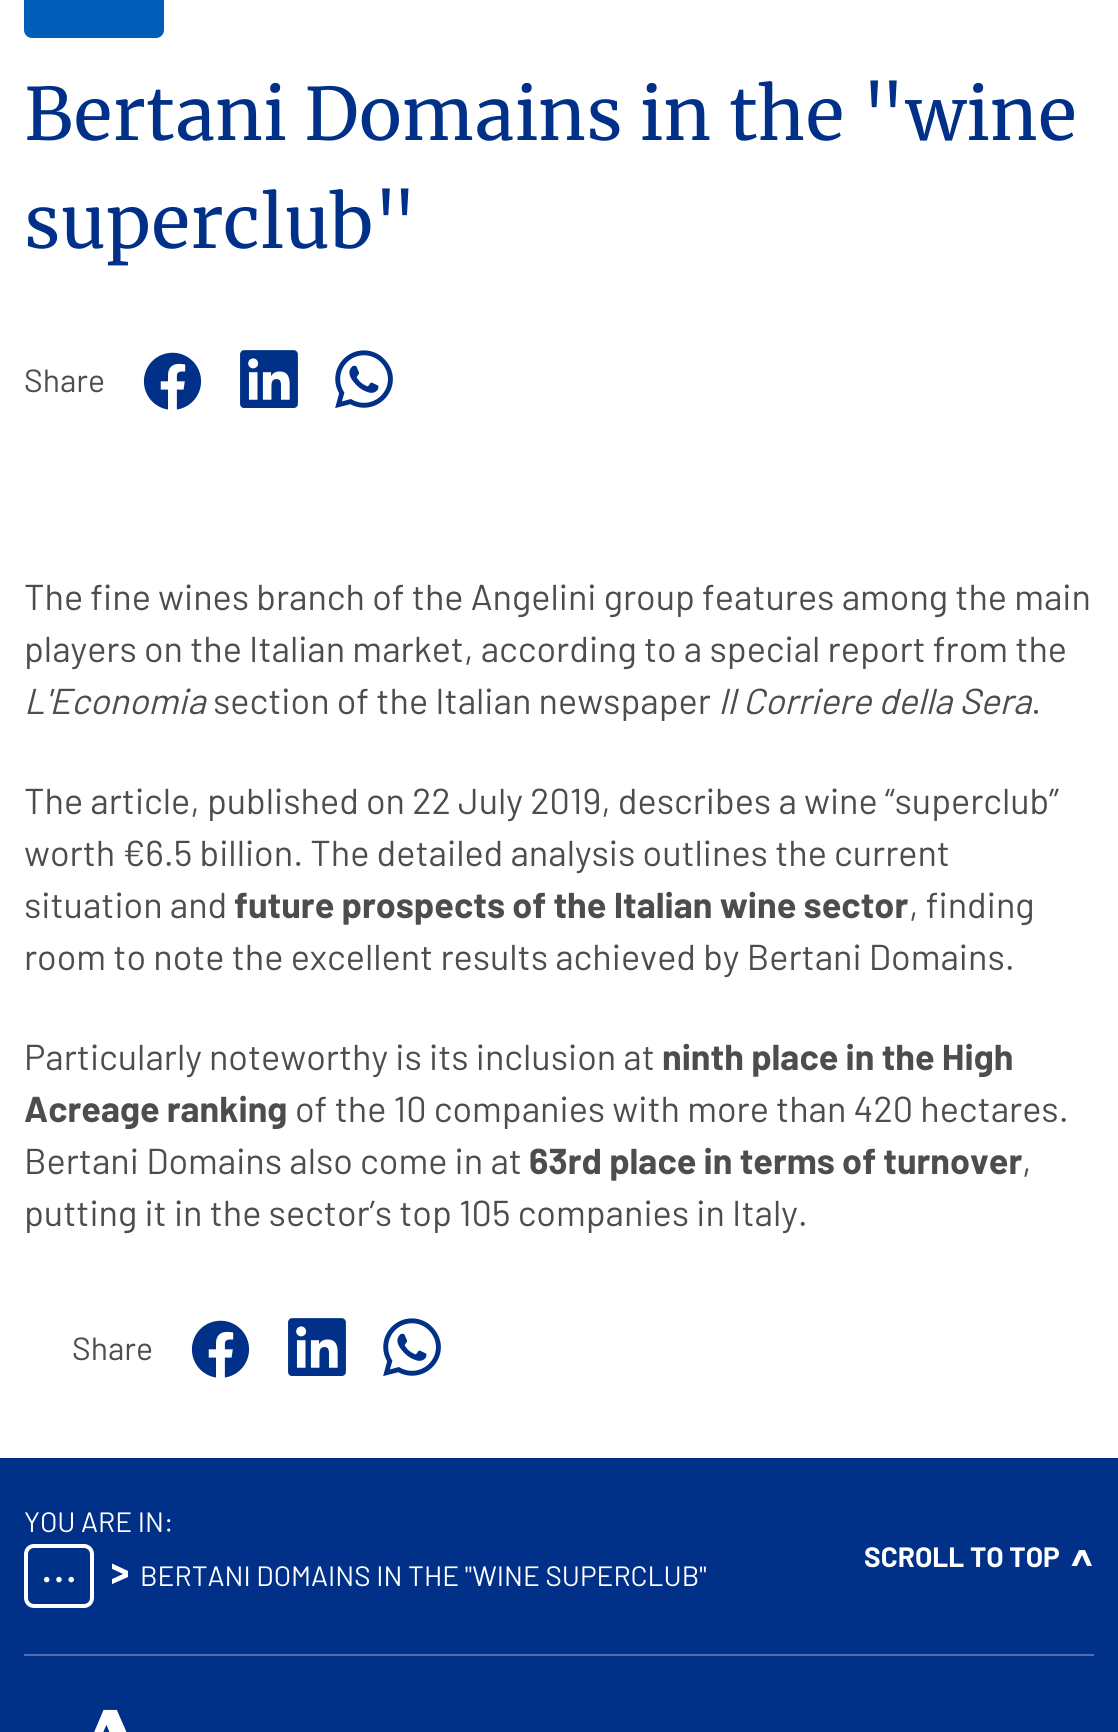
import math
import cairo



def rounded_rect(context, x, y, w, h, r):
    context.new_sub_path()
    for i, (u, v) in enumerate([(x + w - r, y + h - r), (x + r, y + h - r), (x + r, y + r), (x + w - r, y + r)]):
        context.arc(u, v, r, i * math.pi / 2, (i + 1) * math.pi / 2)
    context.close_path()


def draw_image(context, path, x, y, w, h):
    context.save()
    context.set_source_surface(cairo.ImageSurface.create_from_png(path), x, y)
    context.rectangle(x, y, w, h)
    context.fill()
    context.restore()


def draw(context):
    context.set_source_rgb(1, 1, 1)
    context.paint()
    context.set_source_rgb(0, 94 / 255, 184 / 255)
    rounded_rect(context, 25, -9, 138, 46, 7)
    context.fill_preserve()
    context.stroke()
    draw_image(context, "images/1.png", 143, 352, 59, 58)
    draw_image(context, "images/2.png", 240, 350, 58, 58)
    draw_image(context, "images/3.png", 335, 350, 58, 59)
    draw_image(context, "images/1.png", 191, 1320, 59, 58)
    draw_image(context, "images/2.png", 288, 1318, 58, 58)
    draw_image(context, "images/3.png", 383, 1318, 58, 59)
    context.set_source_rgb(0, 48 / 255, 135 / 255)
    context.rectangle(0, 1458, 1118, 274)
    context.fill()
    rounded_rect(context, 26, 1546, 66, 60, 8)
    context.set_source_rgb(1, 1, 1)
    context.set_line_width(4)
    context.stroke()
    context.save()
    context.rectangle(112, 1563, 16, 22)
    context.clip()
    context.new_path()
    context.move_to(71, 1565)
    context.curve_to(82, 1555, 97, 1557, 102, 1571)
    context.curve_to(105, 1578, 105, 1586, 105, 1594)
    context.line_to(110, 1594)
    context.line_to(110, 1585)
    context.line_to(128, 1577)
    context.line_to(128, 1571)
    context.line_to(94, 1555)
    context.curve_to(86, 1551, 77, 1554, 70, 1559)
    context.close_path()
    context.move_to(123, 1574)
    context.line_to(110, 1580)
    context.curve_to(109, 1575, 108, 1570, 106, 1566)
    context.close_path()
    context.fill()
    context.restore()
    context.new_path()
    context.move_to(1082, 1555)
    context.line_to(1087, 1566)
    context.line_to(1092, 1566)
    context.line_to(1085, 1550)
    context.line_to(1079, 1550)
    context.line_to(1071.5, 1566)
    context.line_to(1077, 1566)
    context.close_path()
    context.fill()
    context.set_source_rgb(77 / 255, 110 / 255, 171 / 255)
    context.rectangle(24, 1654, 1070, 2)
    context.fill()
    draw_image(context, "images/4.png", 94, 1709, 33, 23)
    context.select_font_face("Merriweather")
    context.set_font_size(72)
    context.set_source_rgb(0, 48 / 255, 135 / 255)
    context.move_to(24, 140)
    context.show_text("Bertani Domains in the \"wine")
    context.move_to(24, 248)
    context.show_text("superclub\"")
    context.select_font_face("Barlow")
    context.set_font_size(32)
    context.set_source_rgb(77 / 255, 77 / 255, 77 / 255)
    context.move_to(24, 392)
    context.show_text("Share")
    context.set_font_size(36)
    context.move_to(24, 610)
    context.show_text("The fine wines branch of the Angelini group features among the main")
    context.move_to(24, 662)
    context.show_text("players on the Italian market, according to a special report from the")
    context.select_font_face("Barlow", cairo.FontSlant.ITALIC)
    context.move_to(24, 714)
    context.show_text("L'Economia")
    context.select_font_face("Barlow")
    context.move_to(213, 714)
    context.show_text("section of the Italian newspaper")
    context.select_font_face("Barlow", cairo.FontSlant.ITALIC)
    context.move_to(718, 714)
    context.show_text("Il Corriere della Sera")
    context.select_font_face("Barlow")
    context.move_to(1031, 714)
    context.show_text(".")
    context.move_to(24, 814)
    context.show_text("The article, published on 22 July 2019, describes a wine “superclub”")
    context.move_to(24, 866)
    context.show_text("worth €6.5 billion. The detailed analysis outlines the current")
    context.move_to(24, 918)
    context.show_text("situation and")
    context.select_font_face("Barlow", cairo.FontSlant.NORMAL, cairo.FontWeight.BOLD)
    context.move_to(234, 918)
    context.show_text("future prospects of the Italian wine sector")
    context.select_font_face("Barlow")
    context.move_to(909, 918)
    context.show_text(", finding")
    context.move_to(24, 970)
    context.show_text("room to note the excellent results achieved by Bertani Domains.")
    context.move_to(24, 1070)
    context.show_text("Particularly noteworthy is its inclusion at")
    context.select_font_face("Barlow", cairo.FontSlant.NORMAL, cairo.FontWeight.BOLD)
    context.move_to(662, 1070)
    context.show_text("ninth place in the High")
    context.move_to(24, 1122)
    context.show_text("Acreage ranking")
    context.select_font_face("Barlow")
    context.move_to(295, 1122)
    context.show_text("of the 10 companies with more than 420 hectares.")
    context.move_to(24, 1174)
    context.show_text("Bertani Domains also come in at")
    context.select_font_face("Barlow", cairo.FontSlant.NORMAL, cairo.FontWeight.BOLD)
    context.move_to(529, 1174)
    context.show_text("63rd place in terms of turnover")
    context.select_font_face("Barlow")
    context.move_to(1022, 1174)
    context.show_text(",")
    context.move_to(24, 1226)
    context.show_text("putting it in the sector’s top 105 companies in Italy.")
    context.set_font_size(32)
    context.move_to(72, 1360)
    context.show_text("Share")
    context.set_font_size(28)
    context.set_source_rgb(1, 1, 1)
    context.move_to(24, 1532)
    context.show_text("YOU ARE IN:")
    context.set_font_size(24)
    context.move_to(43, 1586)
    context.show_text("• • •")
    context.set_font_size(28)
    context.move_to(140, 1586)
    context.show_text("BERTANI DOMAINS IN THE \"WINE SUPERCLUB\"")
    context.select_font_face("Barlow", cairo.FontSlant.NORMAL, cairo.FontWeight.BOLD)
    context.move_to(864, 1567)
    context.show_text("SCROLL TO TOP")


surface = cairo.ImageSurface(cairo.Format.RGB24, 1118, 1732)
context = cairo.Context(surface)
options = cairo.FontOptions()
options.set_hint_metrics(cairo.HintMetrics.OFF)
options.set_hint_style(cairo.HintStyle.NONE)
context.set_font_options(options)
context.set_miter_limit(4)
draw(context)
surface.write_to_png("out.png")
